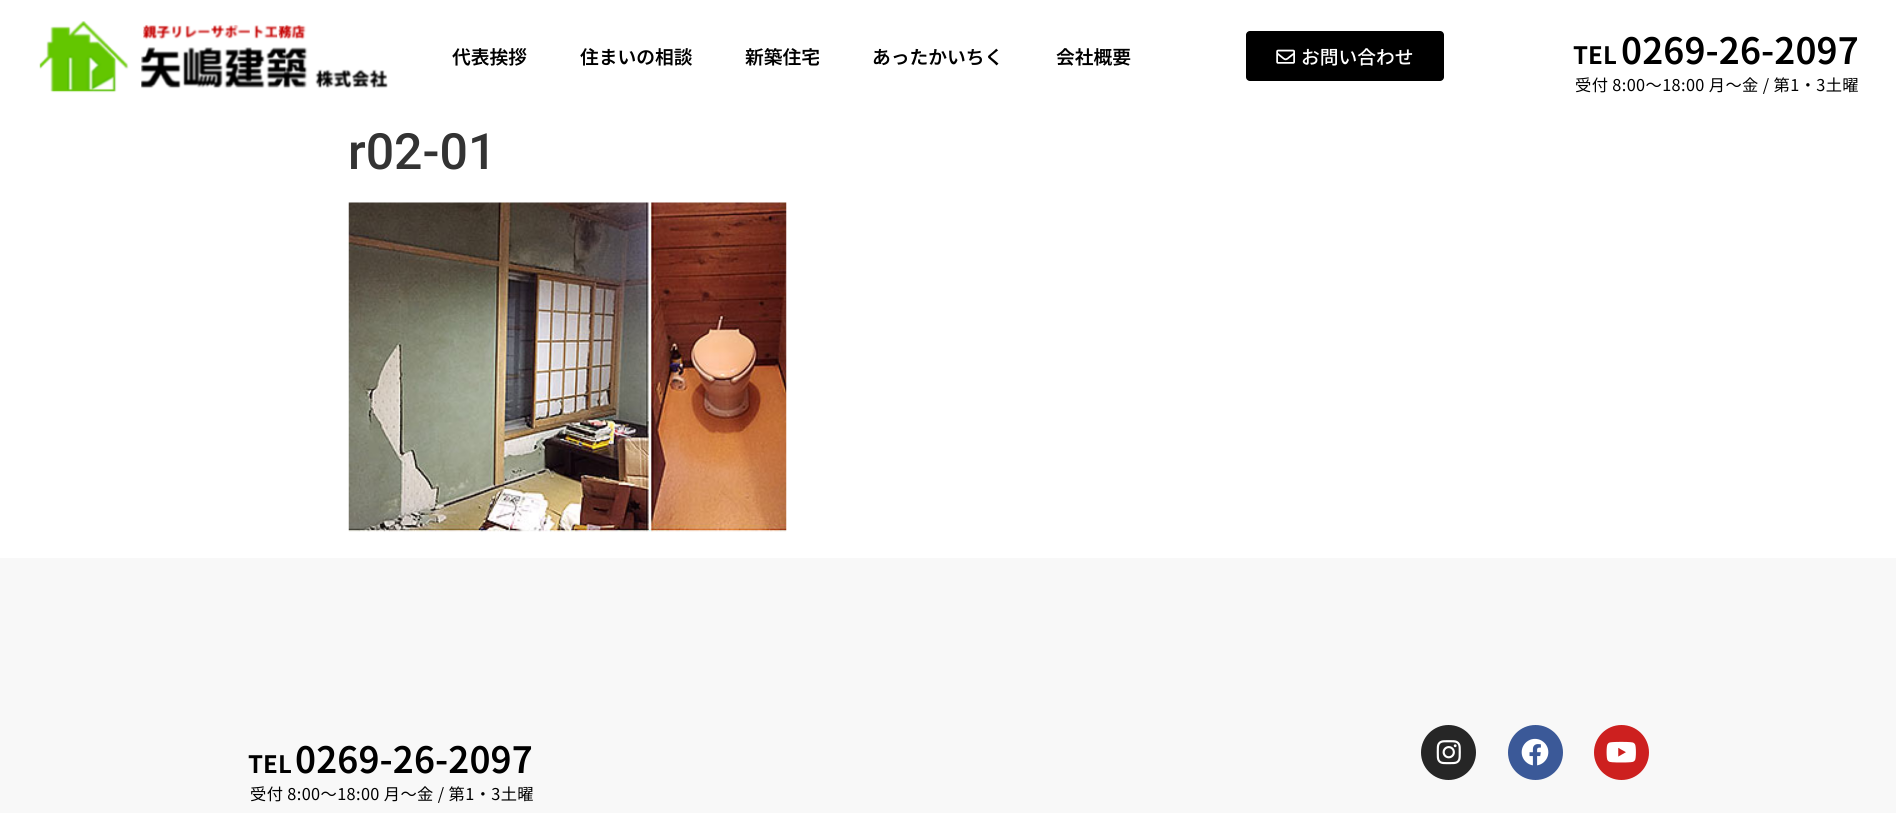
import math
import cairo



def draw_spaced(context, x, y, s, letter, word):
    context.move_to(x, y)
    for ch in s:
        context.show_text(ch)
        context.rel_move_to(letter + word * (ch == ' '), 0)


def rounded_rect(context, x, y, w, h, r):
    context.new_sub_path()
    for i, (u, v) in enumerate([(x + w - r, y + h - r), (x + r, y + h - r), (x + r, y + r), (x + w - r, y + r)]):
        context.arc(u, v, r, i * math.pi / 2, (i + 1) * math.pi / 2)
    context.close_path()


def draw_image(context, path, x, y, w, h):
    context.save()
    context.set_source_surface(cairo.ImageSurface.create_from_png(path), x, y)
    context.rectangle(x, y, w, h)
    context.fill()
    context.restore()


def draw(context):
    context.set_source_rgb(1, 1, 1)
    context.paint()
    draw_image(context, "images/1.png", 39, 21, 349, 72)
    context.set_source_rgb(0, 0, 0)
    rounded_rect(context, 1246, 31, 198, 50, 4)
    context.fill()
    draw_image(context, "images/2.png", 1276, 49, 19, 15)
    draw_image(context, "images/3.png", 348, 202, 439, 330)
    context.set_source_rgb(248 / 255, 248 / 255, 248 / 255)
    context.rectangle(0, 558, 1896, 255)
    context.fill()
    context.set_source_rgb(38 / 255, 38 / 255, 38 / 255)
    context.arc(1448.5, 752.5, 27.5, 0, 2 * math.pi)
    context.fill()
    draw_image(context, "images/4.png", 1436, 740, 25, 25)
    context.set_source_rgb(59 / 255, 89 / 255, 152 / 255)
    context.arc(1535.5, 752.5, 27.5, 0, 2 * math.pi)
    context.fill()
    draw_image(context, "images/5.png", 1521, 738, 28, 28)
    context.set_source_rgb(205 / 255, 32 / 255, 31 / 255)
    context.arc(1621.5, 752.5, 27.5, 0, 2 * math.pi)
    context.fill()
    draw_image(context, "images/6.png", 1606, 741, 30, 22)
    context.select_font_face("Noto Sans JP SemiBold")
    context.set_font_size(18.75)
    context.set_source_rgb(0, 0, 0)
    context.move_to(452, 64)
    context.show_text("代表挨拶")
    context.move_to(580, 64)
    context.show_text("住まいの相談")
    context.move_to(745, 64)
    context.show_text("新築住宅")
    context.move_to(872, 64)
    context.show_text("あったかいちく")
    context.move_to(1056, 64)
    context.show_text("会社概要")
    context.select_font_face("Noto Sans JP Medium")
    context.set_source_rgb(1, 1, 1)
    context.move_to(1301, 64)
    context.show_text("お問い合わせ")
    context.select_font_face("Noto Sans JP", cairo.FontSlant.NORMAL, cairo.FontWeight.BOLD)
    context.set_font_size(24)
    context.set_source_rgb(0, 0, 0)
    draw_spaced(context, 1573, 64, "TEL", 0.1, 0)
    context.select_font_face("Noto Sans JP SemiBold")
    context.set_font_size(36.25)
    draw_spaced(context, 1621, 64, "0269-26-2097", 0.1, 0)
    context.select_font_face("Noto Sans JP")
    context.set_font_size(16.25)
    draw_spaced(context, 1575, 91, "受付 8:00〜18:00 月〜金 / 第1・3土曜", 0.4, 0)
    context.select_font_face("Roboto Medium")
    context.set_font_size(50)
    context.set_source_rgb(51 / 255, 51 / 255, 51 / 255)
    context.move_to(348, 169)
    context.show_text("r02-01")
    context.select_font_face("Noto Sans JP", cairo.FontSlant.NORMAL, cairo.FontWeight.BOLD)
    context.set_font_size(24)
    context.set_source_rgb(0, 0, 0)
    draw_spaced(context, 248, 773, "TEL", 0.1, 0)
    context.select_font_face("Noto Sans JP SemiBold")
    context.set_font_size(36.25)
    draw_spaced(context, 295, 773, "0269-26-2097", 0.1, 0)
    context.select_font_face("Noto Sans JP")
    context.set_font_size(16.25)
    draw_spaced(context, 250, 800, "受付 8:00〜18:00 月〜金 / 第1・3土曜", 0.4, 0)


surface = cairo.ImageSurface(cairo.Format.RGB24, 1896, 813)
context = cairo.Context(surface)
options = cairo.FontOptions()
options.set_hint_metrics(cairo.HintMetrics.OFF)
options.set_hint_style(cairo.HintStyle.NONE)
context.set_font_options(options)
context.set_miter_limit(4)
draw(context)
surface.write_to_png("out.png")
